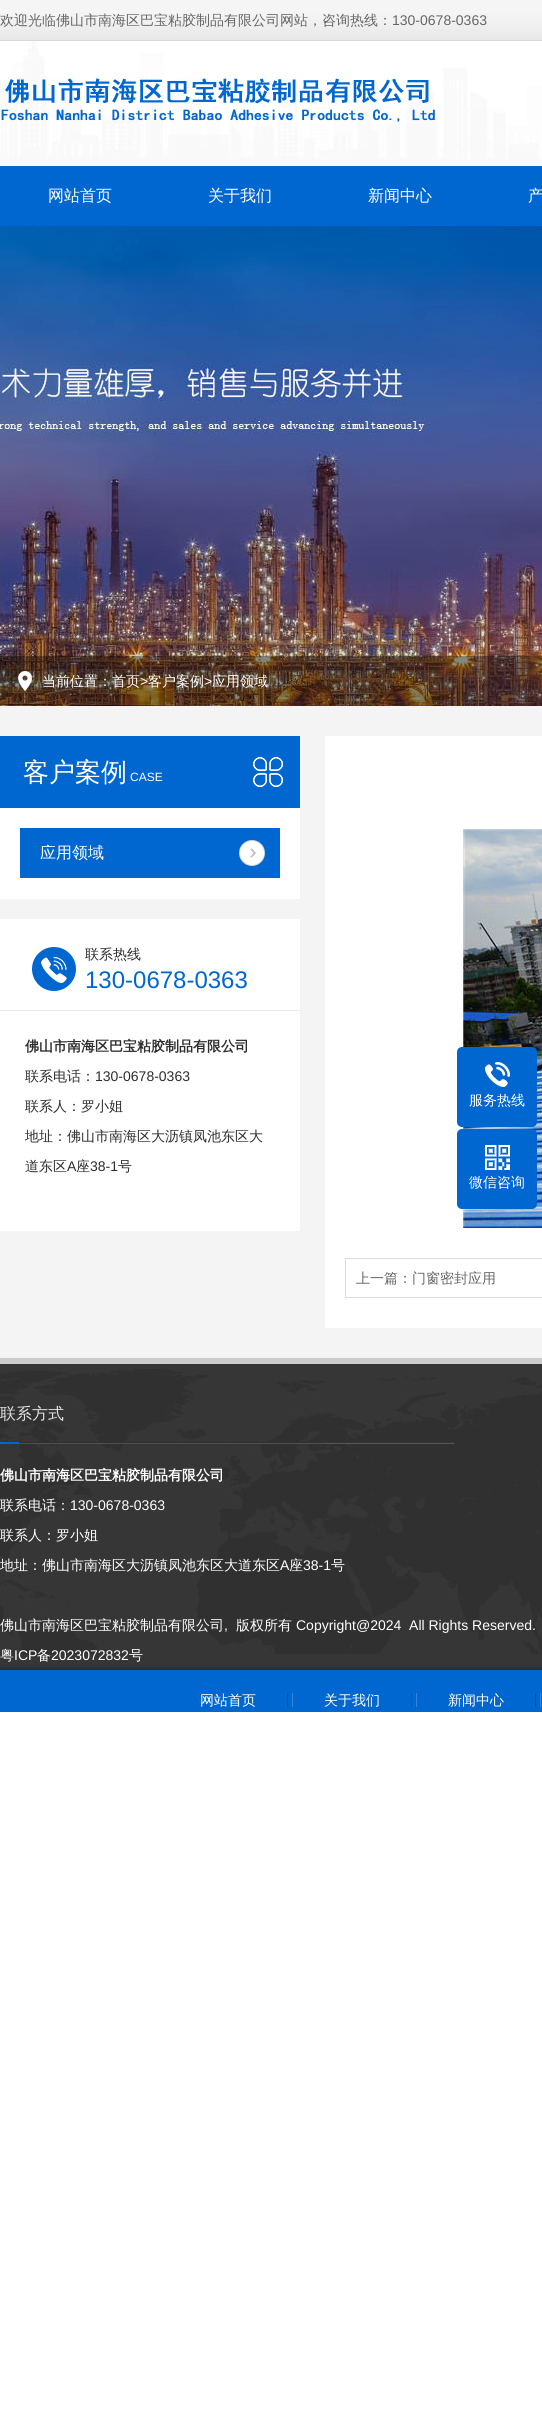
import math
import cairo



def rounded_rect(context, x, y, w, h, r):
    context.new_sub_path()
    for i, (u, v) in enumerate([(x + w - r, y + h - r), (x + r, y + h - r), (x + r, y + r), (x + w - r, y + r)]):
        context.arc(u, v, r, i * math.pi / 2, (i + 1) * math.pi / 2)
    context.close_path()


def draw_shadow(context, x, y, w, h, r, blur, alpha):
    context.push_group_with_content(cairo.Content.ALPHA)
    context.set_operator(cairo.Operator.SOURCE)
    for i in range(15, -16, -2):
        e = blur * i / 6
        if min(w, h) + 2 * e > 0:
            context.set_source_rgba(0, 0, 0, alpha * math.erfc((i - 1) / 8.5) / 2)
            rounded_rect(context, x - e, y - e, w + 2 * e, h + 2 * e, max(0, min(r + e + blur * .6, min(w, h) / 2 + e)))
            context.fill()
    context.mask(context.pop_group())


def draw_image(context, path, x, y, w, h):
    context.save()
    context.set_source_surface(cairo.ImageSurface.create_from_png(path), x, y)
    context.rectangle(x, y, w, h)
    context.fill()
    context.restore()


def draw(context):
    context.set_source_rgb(1, 1, 1)
    context.paint()
    draw_image(context, "images/1.png", 0, 0, 542, 40)
    context.set_source_rgb(216 / 255, 216 / 255, 216 / 255)
    context.rectangle(0, 40, 542, 1)
    context.fill()
    draw_image(context, "images/2.png", 0, 41, 542, 125)
    draw_image(context, "images/3.png", 1, 78, 434, 44)
    context.set_source_rgb(0, 103 / 255, 208 / 255)
    context.rectangle(0, 166, 542, 60)
    context.fill()
    draw_image(context, "images/4.png", 0, 226, 542, 480)
    context.set_source_rgba(0, 0, 0, 0.35)
    context.rectangle(0, 656, 542, 50)
    context.fill()
    draw_image(context, "images/5.png", 18, 671, 14, 20)
    context.set_source_rgb(244 / 255, 244 / 255, 244 / 255)
    context.rectangle(0, 706, 542, 652)
    context.fill()
    context.set_source_rgb(0, 103 / 255, 208 / 255)
    context.rectangle(0, 736, 300, 72)
    context.fill()
    draw_image(context, "images/6.png", 253, 757, 30, 30)
    context.set_source_rgb(1, 1, 1)
    context.rectangle(0, 808, 300, 91)
    context.fill()
    context.set_source_rgb(0, 103 / 255, 208 / 255)
    context.rectangle(20, 828, 260, 50)
    context.fill()
    draw_image(context, "images/7.png", 239, 840, 26, 26)
    context.set_source_rgb(1, 1, 1)
    context.rectangle(0, 919, 300, 312)
    context.fill()
    draw_image(context, "images/8.png", 32, 947, 44, 44)
    context.set_source_rgb(234 / 255, 234 / 255, 234 / 255)
    context.rectangle(0, 1010, 300, 1)
    context.fill()
    context.set_source_rgb(1, 1, 1)
    context.rectangle(325, 736, 217, 592)
    context.fill()
    draw_image(context, "images/9.png", 463, 829, 79, 399)
    context.rectangle(345.5, 1258.5, 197, 39)
    context.set_source_rgb(221 / 255, 221 / 255, 221 / 255)
    context.set_line_width(1)
    context.stroke()
    context.set_source_rgb(0, 103 / 255, 208 / 255)
    rounded_rect(context, 457, 1047, 80, 80, 5)
    context.fill()
    draw_image(context, "images/10.png", 485, 1062, 25, 25)
    rounded_rect(context, 457, 1129, 80, 80, 5)
    context.fill()
    draw_image(context, "images/11.png", 485, 1145, 25, 25)
    context.set_source_rgb(54 / 255, 54 / 255, 54 / 255)
    context.rectangle(0, 1364, 542, 306)
    context.fill()
    draw_image(context, "images/12.png", 0, 1369, 542, 285)
    context.set_source_rgb(204 / 255, 204 / 255, 204 / 255)
    context.rectangle(0, 1358, 542, 6)
    context.fill()
    draw_image(context, "images/13.png", 19, 1442, 436, 2)
    context.set_source_rgb(0, 103 / 255, 208 / 255)
    context.rectangle(0, 1442, 19, 2)
    context.fill()
    context.save()
    context.rectangle(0, 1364, 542, 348)
    context.clip()
    context.set_source_rgb(0, 0, 0)
    draw_shadow(context, 0, 1670, 542, 60, 0, 2.5, 0.5)
    context.restore()
    context.rectangle(0, 1670, 542, 42)
    context.fill()
    context.set_source_rgb(0, 82 / 255, 166 / 255)
    context.rectangle(287, 1693, 1, 14)
    context.fill()
    context.set_source_rgb(51 / 255, 133 / 255, 217 / 255)
    context.rectangle(292, 1693, 1, 14)
    context.fill()
    context.set_source_rgb(0, 82 / 255, 166 / 255)
    context.rectangle(411, 1693, 1, 14)
    context.fill()
    context.set_source_rgb(51 / 255, 133 / 255, 217 / 255)
    context.rectangle(416, 1693, 1, 14)
    context.fill()
    context.set_source_rgb(0, 82 / 255, 166 / 255)
    context.rectangle(535, 1693, 1, 14)
    context.fill()
    context.set_source_rgb(51 / 255, 133 / 255, 217 / 255)
    context.rectangle(540, 1693, 1, 14)
    context.fill()
    context.select_font_face("WenQuanYi Zen Hei Medium")
    context.set_font_size(14)
    context.set_source_rgb(102 / 255, 102 / 255, 102 / 255)
    context.move_to(0, 25)
    context.show_text("欢迎光临佛山市南海区巴宝粘胶制品有限公司网站，咨询热线：")
    context.select_font_face("Liberation Sans")
    context.move_to(392, 25)
    context.show_text("130-0678-0363")
    context.select_font_face("WenQuanYi Zen Hei Medium")
    context.set_font_size(16)
    context.set_source_rgb(1, 1, 1)
    context.move_to(48, 201)
    context.show_text("网站首页")
    context.move_to(208, 201)
    context.show_text("关于我们")
    context.move_to(368, 201)
    context.show_text("新闻中心")
    context.move_to(528, 201)
    context.show_text("产")
    context.set_font_size(14)
    context.move_to(42, 686)
    context.show_text("当前位置：首页")
    context.select_font_face("Liberation Sans")
    context.move_to(140, 686)
    context.show_text(">")
    context.select_font_face("WenQuanYi Zen Hei Medium")
    context.move_to(148, 686)
    context.show_text("客户案例")
    context.select_font_face("Liberation Sans")
    context.move_to(204, 686)
    context.show_text(">")
    context.select_font_face("WenQuanYi Zen Hei Medium")
    context.move_to(212, 686)
    context.show_text("应用领域")
    context.set_font_size(26)
    context.move_to(23, 781)
    context.show_text("客户案例")
    context.select_font_face("Liberation Sans")
    context.set_font_size(12)
    context.move_to(130, 781)
    context.show_text("CASE")
    context.select_font_face("WenQuanYi Zen Hei Medium")
    context.set_font_size(16)
    context.move_to(40, 858)
    context.show_text("应用领域")
    context.set_font_size(14)
    context.set_source_rgb(45 / 255, 45 / 255, 45 / 255)
    context.move_to(85, 959)
    context.show_text("联系热线")
    context.select_font_face("Liberation Sans")
    context.set_font_size(24)
    context.set_source_rgb(0, 103 / 255, 208 / 255)
    context.move_to(85, 988)
    context.show_text("130-0678-0363")
    context.select_font_face("WenQuanYi Zen Hei", cairo.FontSlant.NORMAL, cairo.FontWeight.BOLD)
    context.set_font_size(14)
    context.set_source_rgb(45 / 255, 45 / 255, 45 / 255)
    context.move_to(25, 1051)
    context.show_text("佛山市南海区巴宝粘胶制品有限公司")
    context.select_font_face("WenQuanYi Zen Hei Medium")
    context.move_to(25, 1081)
    context.show_text("联系电话：")
    context.select_font_face("Liberation Sans")
    context.move_to(95, 1081)
    context.show_text("130-0678-0363")
    context.select_font_face("WenQuanYi Zen Hei Medium")
    context.move_to(25, 1111)
    context.show_text("联系人：罗小姐")
    context.move_to(25, 1141)
    context.show_text("地址：佛山市南海区大沥镇凤池东区大")
    context.move_to(25, 1171)
    context.show_text("道东区")
    context.select_font_face("Liberation Sans")
    context.move_to(67, 1171)
    context.show_text("A")
    context.select_font_face("WenQuanYi Zen Hei Medium")
    context.move_to(76, 1171)
    context.show_text("座")
    context.select_font_face("Liberation Sans")
    context.move_to(90, 1171)
    context.show_text("38-1")
    context.select_font_face("WenQuanYi Zen Hei Medium")
    context.move_to(118, 1171)
    context.show_text("号")
    context.set_source_rgb(102 / 255, 102 / 255, 102 / 255)
    context.move_to(356, 1283)
    context.show_text("上一篇：门窗密封应用")
    context.set_source_rgb(1, 1, 1)
    context.move_to(469, 1105)
    context.show_text("服务热线")
    context.move_to(469, 1187)
    context.show_text("微信咨询")
    context.set_font_size(16)
    context.set_source_rgb(227 / 255, 227 / 255, 227 / 255)
    context.move_to(0, 1419)
    context.show_text("联系方式")
    context.select_font_face("WenQuanYi Zen Hei", cairo.FontSlant.NORMAL, cairo.FontWeight.BOLD)
    context.set_font_size(14)
    context.set_source_rgb(1, 1, 1)
    context.move_to(0, 1480)
    context.show_text("佛山市南海区巴宝粘胶制品有限公司")
    context.select_font_face("WenQuanYi Zen Hei Medium")
    context.move_to(0, 1510)
    context.show_text("联系电话：")
    context.select_font_face("Liberation Sans")
    context.move_to(70, 1510)
    context.show_text("130-0678-0363")
    context.select_font_face("WenQuanYi Zen Hei Medium")
    context.move_to(0, 1540)
    context.show_text("联系人：罗小姐")
    context.move_to(0, 1570)
    context.show_text("地址：佛山市南海区大沥镇凤池东区大道东区")
    context.select_font_face("Liberation Sans")
    context.move_to(280, 1570)
    context.show_text("A")
    context.select_font_face("WenQuanYi Zen Hei Medium")
    context.move_to(289, 1570)
    context.show_text("座")
    context.select_font_face("Liberation Sans")
    context.move_to(303, 1570)
    context.show_text("38-1")
    context.select_font_face("WenQuanYi Zen Hei Medium")
    context.move_to(331, 1570)
    context.show_text("号")
    context.move_to(0, 1630)
    context.show_text("佛山市南海区巴宝粘胶制品有限公司")
    context.select_font_face("Liberation Sans")
    context.move_to(224, 1630)
    context.show_text(",")
    context.select_font_face("WenQuanYi Zen Hei Medium")
    context.move_to(236, 1630)
    context.show_text("版权所有")
    context.select_font_face("Liberation Sans")
    context.move_to(296, 1630)
    context.show_text("Copyright@2024  All Rights Reserved.")
    context.select_font_face("WenQuanYi Zen Hei Medium")
    context.move_to(0, 1660)
    context.show_text("粤")
    context.select_font_face("Liberation Sans")
    context.move_to(14, 1660)
    context.show_text("ICP")
    context.select_font_face("WenQuanYi Zen Hei Medium")
    context.move_to(37, 1660)
    context.show_text("备")
    context.select_font_face("Liberation Sans")
    context.move_to(51, 1660)
    context.show_text("2023072832")
    context.select_font_face("WenQuanYi Zen Hei Medium")
    context.move_to(129, 1660)
    context.show_text("号")
    context.move_to(200, 1705)
    context.show_text("网站首页")
    context.move_to(324, 1705)
    context.show_text("关于我们")
    context.move_to(448, 1705)
    context.show_text("新闻中心")


surface = cairo.ImageSurface(cairo.Format.RGB24, 542, 2420)
context = cairo.Context(surface)
options = cairo.FontOptions()
options.set_hint_metrics(cairo.HintMetrics.OFF)
options.set_hint_style(cairo.HintStyle.NONE)
context.set_font_options(options)
context.set_miter_limit(4)
draw(context)
surface.write_to_png("out.png")
